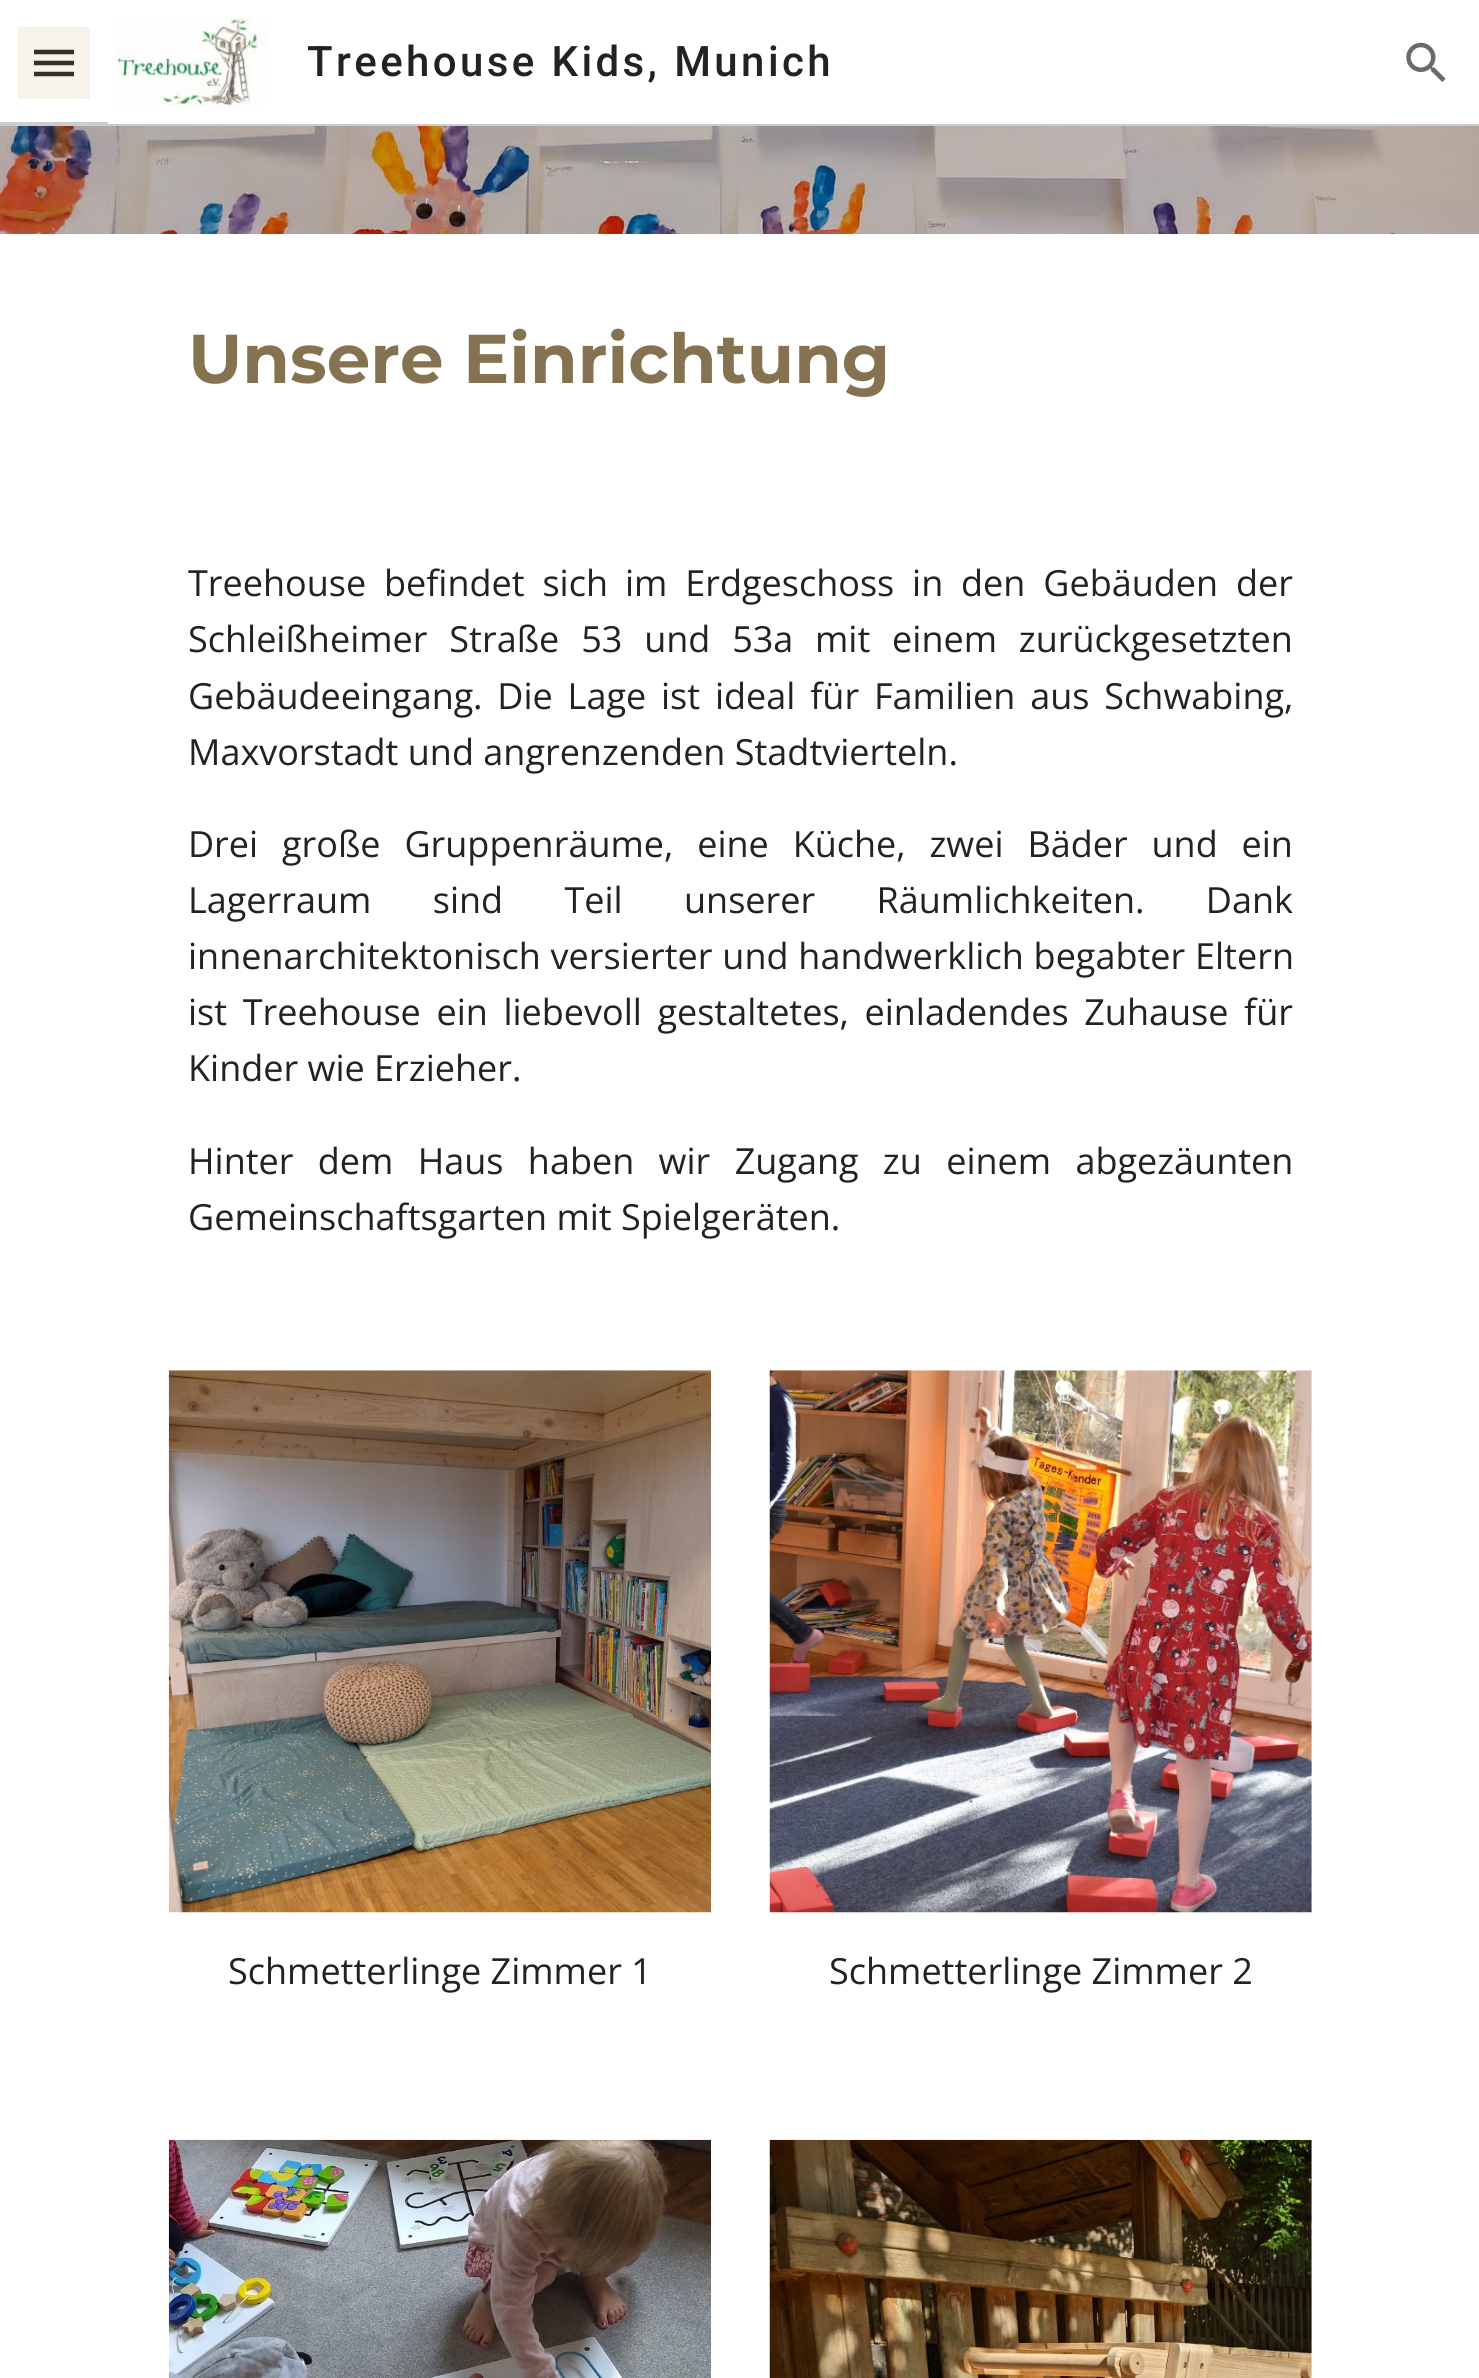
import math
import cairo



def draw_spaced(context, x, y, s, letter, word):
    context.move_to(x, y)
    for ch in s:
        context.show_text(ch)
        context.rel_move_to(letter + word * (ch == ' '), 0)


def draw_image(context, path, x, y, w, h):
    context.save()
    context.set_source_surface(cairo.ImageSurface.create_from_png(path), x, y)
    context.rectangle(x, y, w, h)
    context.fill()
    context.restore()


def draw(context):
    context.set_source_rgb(1, 1, 1)
    context.paint()
    context.set_source_rgb(204 / 255, 204 / 255, 204 / 255)
    context.rectangle(0, 122, 108, 2)
    context.fill()
    context.new_path()
    context.move_to(34, 52)
    context.line_to(74, 52)
    context.move_to(34, 63)
    context.line_to(74, 63)
    context.move_to(34, 74)
    context.line_to(74, 74)
    context.set_source_rgb(33 / 255, 33 / 255, 33 / 255)
    context.set_line_width(4.5)
    context.stroke()
    context.set_source_rgba(183 / 255, 153 / 255, 81 / 255, 0.12)
    context.rectangle(18, 27, 72, 72)
    context.fill()
    draw_image(context, "images/1.png", 115, 18, 152, 89)
    draw_image(context, "images/2.png", 1406, 42, 40, 40)
    context.set_source_rgb(204 / 255, 204 / 255, 204 / 255)
    context.rectangle(0, 124, 1479, 2)
    context.fill()
    draw_image(context, "images/3.png", 0, 126, 1479, 108)
    draw_image(context, "images/4.png", 168, 1370, 543, 543)
    draw_image(context, "images/5.png", 769, 1370, 543, 543)
    draw_image(context, "images/6.png", 168, 2139, 543, 239)
    draw_image(context, "images/7.png", 769, 2139, 543, 239)
    context.select_font_face("Roboto Medium")
    context.set_font_size(42)
    context.set_source_rgb(34 / 255, 34 / 255, 34 / 255)
    draw_spaced(context, 307, 76, "Treehouse Kids, Munich", 3.4, 0)
    context.select_font_face("Montserrat", cairo.FontSlant.NORMAL, cairo.FontWeight.BOLD)
    context.set_font_size(69)
    context.set_source_rgb(133 / 255, 114 / 255, 81 / 255)
    context.move_to(188, 383)
    context.show_text("Unsere Einrichtung")
    context.select_font_face("Open Sans")
    context.set_font_size(36)
    context.set_source_rgb(34 / 255, 34 / 255, 34 / 255)
    draw_spaced(context, 188, 596, "Treehouse befindet sich", 0, 8.5)
    draw_spaced(context, 625, 596, "im Erdgeschoss in den Gebäuden der", 0, 8.5)
    draw_spaced(context, 188, 652, "Schleißheimer Straße 53 und 53a", 0, 12.5)
    draw_spaced(context, 815, 652, "mit einem zurückgesetzten", 0, 12.5)
    context.move_to(188, 709)
    context.show_text("Gebäudeeingang")
    draw_spaced(context, 473, 709, ". Die Lage ist ideal für Familien aus Schwabing,", 0, 5.5)
    context.move_to(188, 765)
    context.show_text("Maxvorstadt und angrenzenden Stadtvierteln.")
    draw_spaced(context, 188, 857, "Drei große Gruppenräume, eine Küche, zwei Bäder und ein", 0, 14.5)
    draw_spaced(context, 188, 913, "Lagerraum sind Teil unserer Räumlichkeiten. Dank", 0, 52)
    draw_spaced(context, 188, 969, "innenarchitektonisch versierter und handwerklich begabter Eltern", 0, 0.5)
    draw_spaced(context, 188, 1025, "ist Treehouse ein liebevoll gestaltetes, einladendes Zuhause für", 0, 6.25)
    context.move_to(188, 1081)
    context.show_text("Kinder wie Erzieher.")
    draw_spaced(context, 188, 1174, "Hinter dem Haus haben wir Zugang zu einem abgezäunten", 0, 15)
    context.move_to(188, 1230)
    context.show_text("Gemeinschaftsgarten mit Spielgeräten.")
    context.move_to(228, 1984)
    context.show_text("Schmetterlinge Zimmer 1")
    context.move_to(829, 1984)
    context.show_text("Schmetterlinge Zimmer 2")


surface = cairo.ImageSurface(cairo.Format.RGB24, 1479, 2378)
context = cairo.Context(surface)
options = cairo.FontOptions()
options.set_hint_metrics(cairo.HintMetrics.OFF)
options.set_hint_style(cairo.HintStyle.NONE)
context.set_font_options(options)
context.set_miter_limit(4)
draw(context)
surface.write_to_png("out.png")
